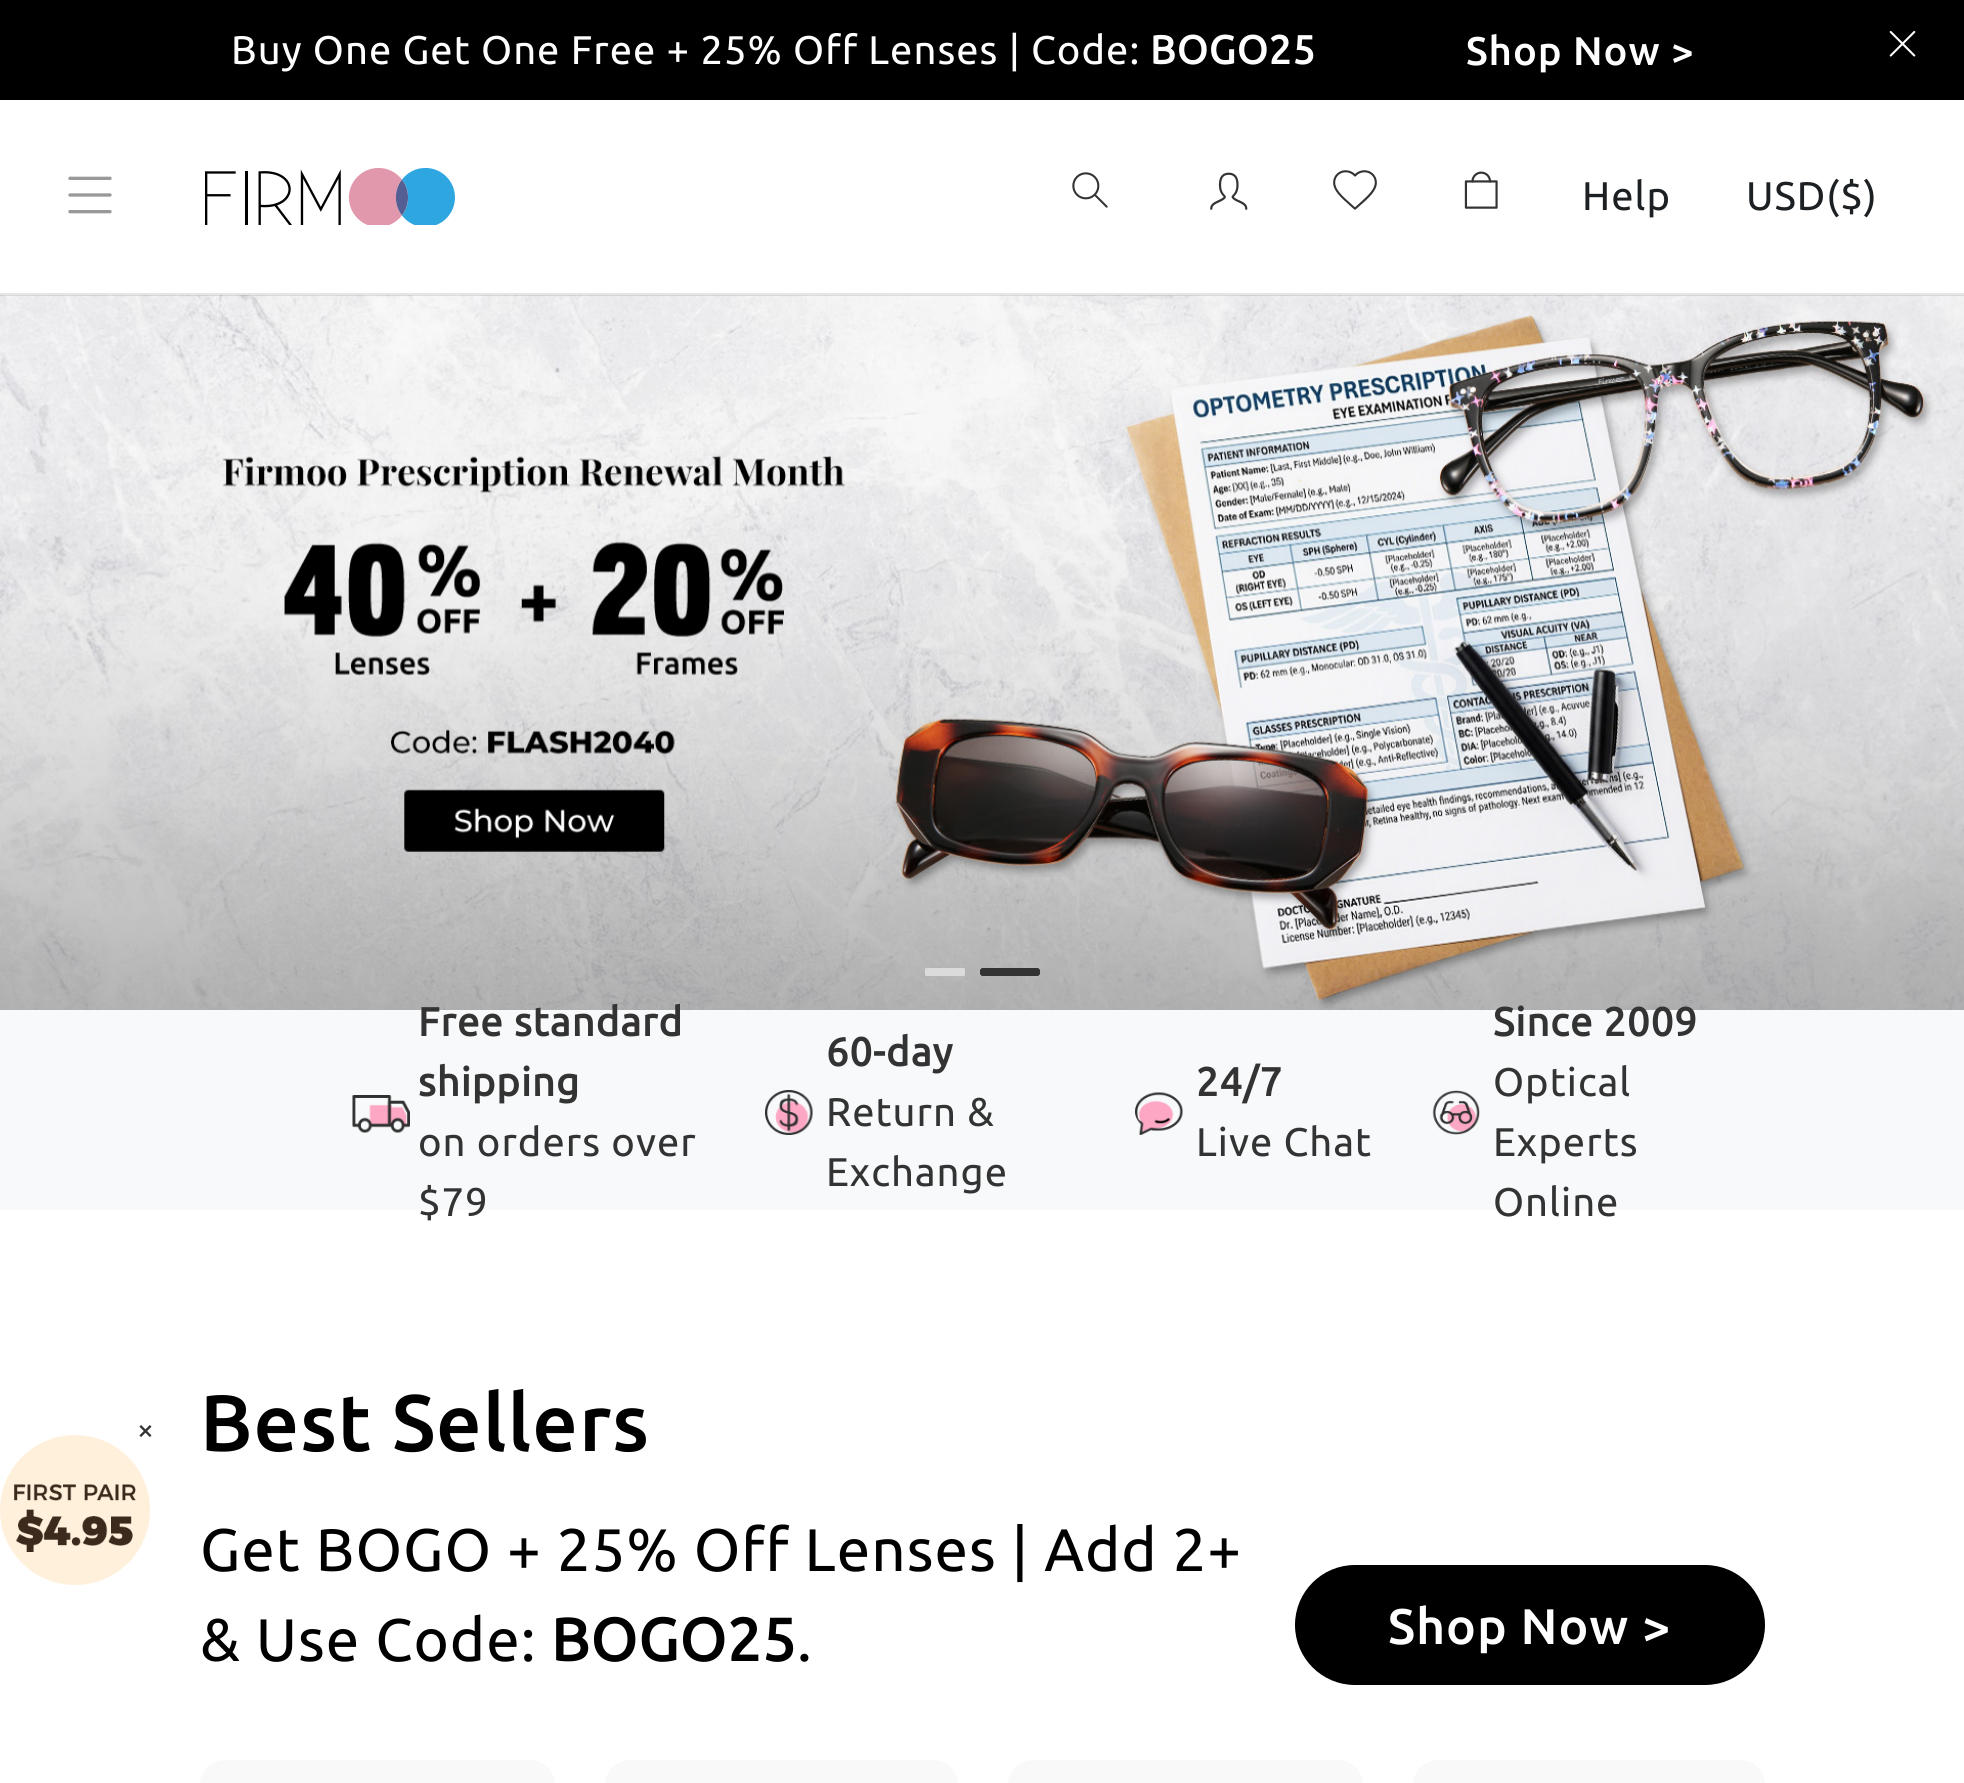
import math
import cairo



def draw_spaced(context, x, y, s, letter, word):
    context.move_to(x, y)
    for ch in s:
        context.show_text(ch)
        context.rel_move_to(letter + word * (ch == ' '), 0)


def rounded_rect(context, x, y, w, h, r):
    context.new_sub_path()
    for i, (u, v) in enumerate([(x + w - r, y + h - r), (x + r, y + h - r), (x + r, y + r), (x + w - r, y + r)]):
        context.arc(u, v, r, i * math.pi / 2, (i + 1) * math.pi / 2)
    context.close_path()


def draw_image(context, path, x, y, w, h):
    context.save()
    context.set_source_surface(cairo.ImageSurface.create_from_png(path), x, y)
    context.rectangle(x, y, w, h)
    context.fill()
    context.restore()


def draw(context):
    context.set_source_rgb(1, 1, 1)
    context.paint()
    context.set_source_rgb(0, 0, 0)
    context.rectangle(0, 0, 1964, 100)
    context.fill()
    draw_image(context, "images/1.png", 1889, 31, 27, 26)
    draw_image(context, "images/9.png", 0, 295, 1964, 715)
    context.set_source_rgba(0, 0, 0, 0.1)
    context.rectangle(0, 293, 1964, 3)
    context.fill()
    draw_image(context, "images/2.png", 68, 176, 44, 38)
    draw_image(context, "images/3.png", 205, 168, 250, 57)
    draw_image(context, "images/4.png", 1072, 172, 36, 36)
    draw_image(context, "images/5.png", 1210, 172, 38, 38)
    draw_image(context, "images/6.png", 1333, 170, 44, 40)
    draw_image(context, "images/7.png", 1464, 171, 34, 38)
    draw_image(context, "images/8.png", 0, 1435, 150, 150)
    context.set_source_rgb(204 / 255, 204 / 255, 204 / 255)
    context.rectangle(925, 968, 40, 8)
    context.fill()
    context.set_source_rgb(219 / 255, 219 / 255, 219 / 255)
    rounded_rect(context, 925, 968, 40, 8, 2.5)
    context.fill()
    context.set_source_rgb(204 / 255, 204 / 255, 204 / 255)
    context.rectangle(980, 968, 60, 8)
    context.fill()
    context.set_source_rgb(51 / 255, 51 / 255, 51 / 255)
    rounded_rect(context, 980, 968, 60, 8, 2.5)
    context.fill()
    context.set_source_rgb(247 / 255, 249 / 255, 250 / 255)
    context.rectangle(0, 1010, 1964, 200)
    context.fill()
    draw_image(context, "images/10.png", 352, 1095, 58, 38)
    draw_image(context, "images/11.png", 765, 1090, 48, 45)
    draw_image(context, "images/12.png", 1135, 1092, 48, 43)
    draw_image(context, "images/13.png", 1432, 1090, 48, 45)
    context.set_source_rgb(0, 0, 0)
    rounded_rect(context, 1295, 1565, 470, 120, 60)
    context.fill()
    context.set_source_rgb(249 / 255, 249 / 255, 249 / 255)
    context.new_path()
    context.move_to(225, 1760)
    context.line_to(530, 1760)
    context.curve_to(544, 1760, 555, 1771, 555, 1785)
    context.line_to(555, 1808)
    context.line_to(200, 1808)
    context.line_to(200, 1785)
    context.curve_to(200, 1771, 211, 1760, 225, 1760)
    context.close_path()
    context.fill()
    context.new_path()
    context.move_to(630, 1760)
    context.line_to(933, 1760)
    context.curve_to(947, 1760, 958, 1771, 958, 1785)
    context.line_to(958, 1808)
    context.line_to(605, 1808)
    context.line_to(605, 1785)
    context.curve_to(605, 1771, 616, 1760, 630, 1760)
    context.close_path()
    context.fill()
    context.new_path()
    context.move_to(1033, 1760)
    context.line_to(1338, 1760)
    context.curve_to(1352, 1760, 1363, 1771, 1363, 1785)
    context.line_to(1363, 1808)
    context.line_to(1008, 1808)
    context.line_to(1008, 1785)
    context.curve_to(1008, 1771, 1019, 1760, 1033, 1760)
    context.close_path()
    context.fill()
    context.new_path()
    context.move_to(1438, 1760)
    context.line_to(1740, 1760)
    context.curve_to(1754, 1760, 1765, 1771, 1765, 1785)
    context.line_to(1765, 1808)
    context.line_to(1413, 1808)
    context.line_to(1413, 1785)
    context.curve_to(1413, 1771, 1424, 1760, 1438, 1760)
    context.close_path()
    context.fill()
    context.select_font_face("Ubuntu")
    context.set_font_size(40)
    context.set_source_rgb(1, 1, 1)
    draw_spaced(context, 231, 64, "Buy One Get One Free + 25% Off Lenses | Code:", 1, 0)
    context.select_font_face("Ubuntu", cairo.FontSlant.NORMAL, cairo.FontWeight.BOLD)
    draw_spaced(context, 1150, 64, "BOGO25", 1, 0)
    context.select_font_face("Ubuntu Medium")
    draw_spaced(context, 1466, 65, "Shop Now >", 1, 0)
    context.select_font_face("Ubuntu")
    context.set_source_rgb(29 / 255, 32 / 255, 35 / 255)
    draw_spaced(context, 1582, 210, "Help", 1, 0)
    draw_spaced(context, 1746, 210, "USD($)", 1, 0)
    context.set_font_size(30)
    context.set_source_rgb(51 / 255, 51 / 255, 51 / 255)
    draw_spaced(context, 137, 1440, "×", 1, 0)
    context.select_font_face("Ubuntu", cairo.FontSlant.NORMAL, cairo.FontWeight.BOLD)
    context.set_font_size(40)
    draw_spaced(context, 418, 1036, "Free standard", 1, 0)
    draw_spaced(context, 418, 1096, "shipping", 1, 0)
    context.select_font_face("Ubuntu")
    draw_spaced(context, 418, 1156, "on orders over", 1, 0)
    draw_spaced(context, 418, 1216, "$79", 1, 0)
    context.select_font_face("Ubuntu", cairo.FontSlant.NORMAL, cairo.FontWeight.BOLD)
    draw_spaced(context, 826, 1066, "60-day", 1, 0)
    context.select_font_face("Ubuntu")
    draw_spaced(context, 826, 1126, "Return &", 1, 0)
    draw_spaced(context, 826, 1186, "Exchange", 1, 0)
    context.select_font_face("Ubuntu", cairo.FontSlant.NORMAL, cairo.FontWeight.BOLD)
    draw_spaced(context, 1196, 1096, "24/7", 1, 0)
    context.select_font_face("Ubuntu")
    draw_spaced(context, 1196, 1156, "Live Chat", 1, 0)
    context.select_font_face("Ubuntu", cairo.FontSlant.NORMAL, cairo.FontWeight.BOLD)
    draw_spaced(context, 1493, 1036, "Since 2009", 1, 0)
    context.select_font_face("Ubuntu")
    draw_spaced(context, 1493, 1096, "Optical", 1, 0)
    draw_spaced(context, 1493, 1156, "Experts", 1, 0)
    draw_spaced(context, 1493, 1216, "Online", 1, 0)
    context.select_font_face("Ubuntu Medium")
    context.set_font_size(80)
    context.set_source_rgb(0, 0, 0)
    draw_spaced(context, 200, 1451, "Best Sellers", 1, 0)
    context.select_font_face("Ubuntu")
    context.set_font_size(60)
    draw_spaced(context, 200, 1571, "Get BOGO + 25% Off Lenses | Add 2+", 1, 0)
    draw_spaced(context, 200, 1661, "& Use Code:", 1, 0)
    context.select_font_face("Ubuntu", cairo.FontSlant.NORMAL, cairo.FontWeight.BOLD)
    draw_spaced(context, 551, 1661, "BOGO25", 1, 0)
    context.select_font_face("Ubuntu")
    draw_spaced(context, 797, 1661, ".", 1, 0)
    context.select_font_face("Ubuntu Medium")
    context.set_font_size(50)
    context.set_source_rgb(1, 1, 1)
    draw_spaced(context, 1388, 1644, "Shop Now >", 1, 0)


surface = cairo.ImageSurface(cairo.Format.RGB24, 1964, 1783)
context = cairo.Context(surface)
options = cairo.FontOptions()
options.set_hint_metrics(cairo.HintMetrics.OFF)
options.set_hint_style(cairo.HintStyle.NONE)
context.set_font_options(options)
context.set_miter_limit(4)
draw(context)
surface.write_to_png("out.png")
